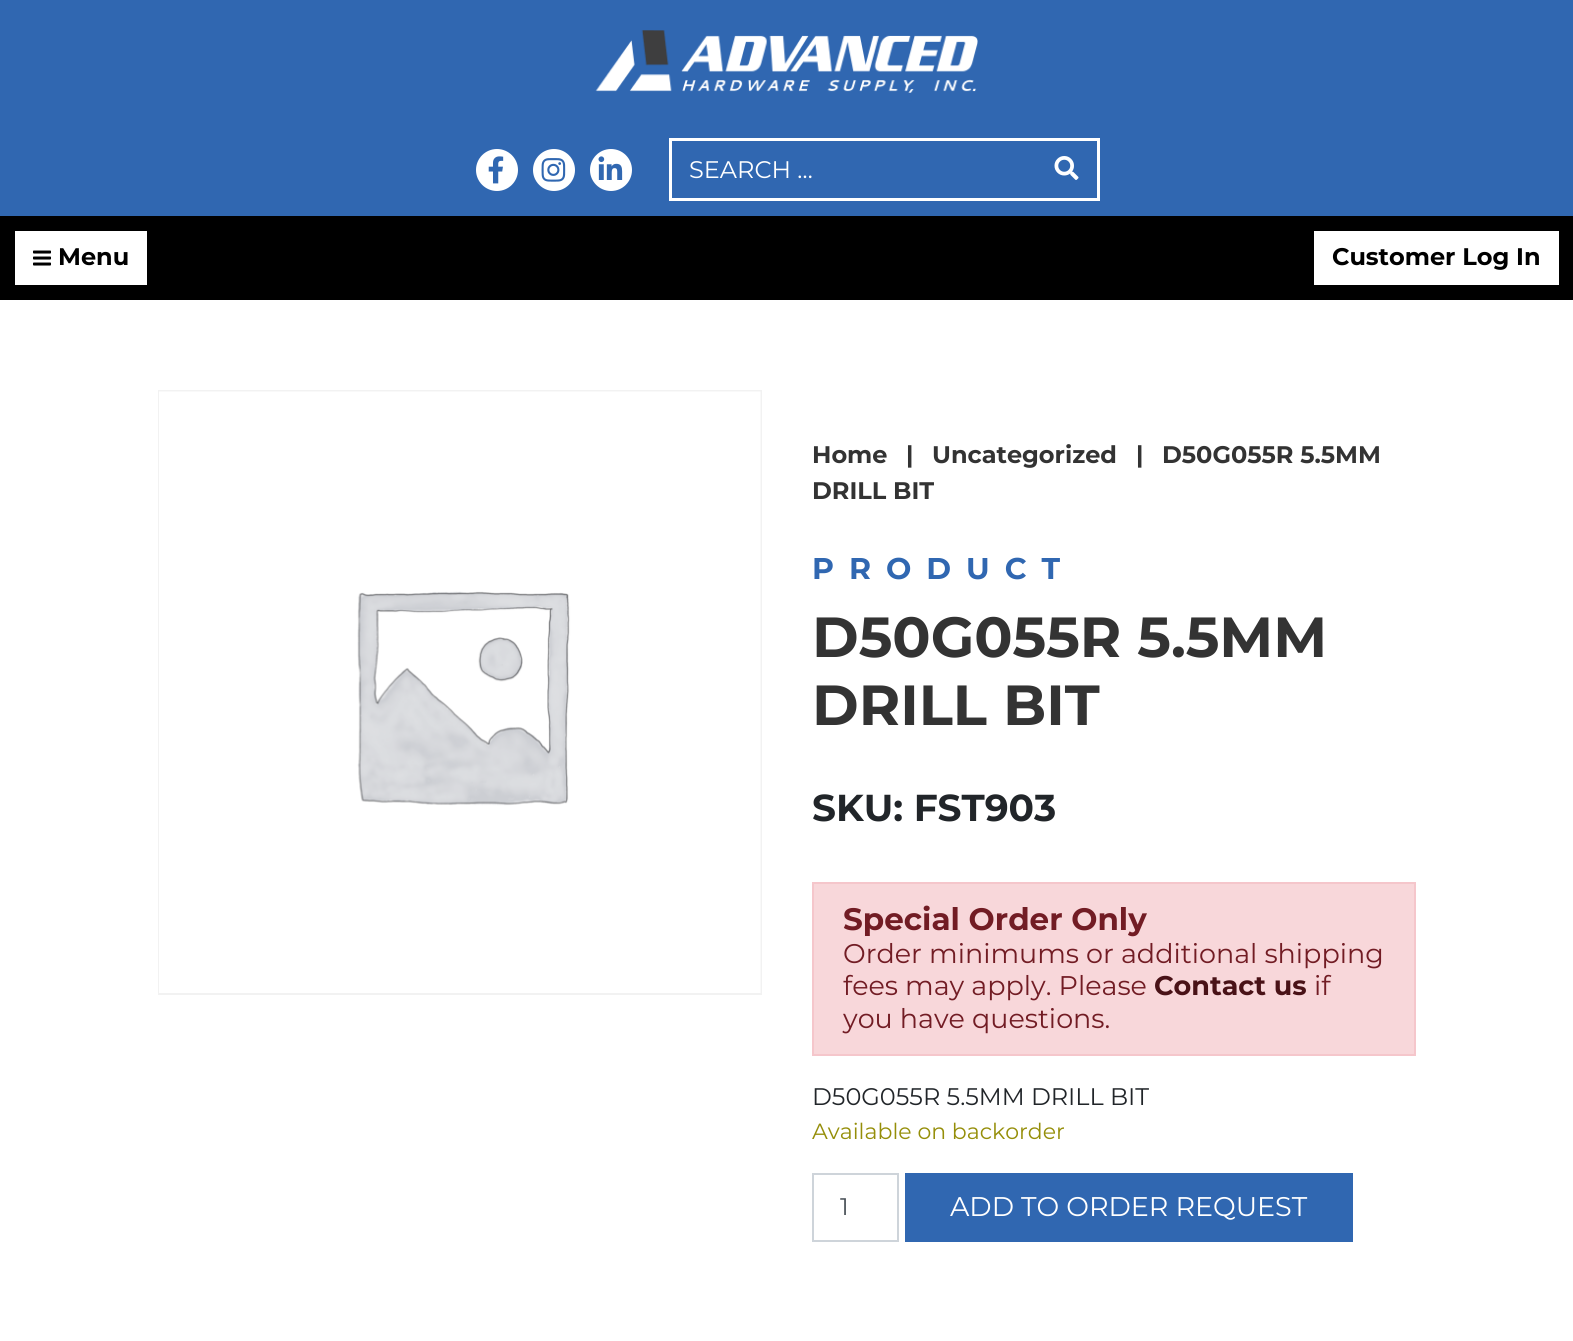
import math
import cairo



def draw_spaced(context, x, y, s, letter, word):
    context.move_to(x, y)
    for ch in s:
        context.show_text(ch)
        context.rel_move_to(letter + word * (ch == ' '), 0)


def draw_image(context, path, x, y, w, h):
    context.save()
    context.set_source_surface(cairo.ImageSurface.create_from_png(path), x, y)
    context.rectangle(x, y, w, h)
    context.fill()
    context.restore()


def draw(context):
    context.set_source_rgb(1, 1, 1)
    context.paint()
    context.set_source_rgb(48 / 255, 103 / 255, 177 / 255)
    context.rectangle(0, 0, 1573, 216)
    context.fill()
    draw_image(context, "images/1.png", 595, 30, 383, 63)
    context.set_source_rgb(1, 1, 1)
    context.arc(497, 170, 21, 0, 2 * math.pi)
    context.fill()
    draw_image(context, "images/2.png", 488, 156, 16, 28)
    context.arc(554, 170, 21, 0, 2 * math.pi)
    context.fill()
    draw_image(context, "images/3.png", 541, 158, 25, 24)
    context.arc(611, 170, 21, 0, 2 * math.pi)
    context.fill()
    draw_image(context, "images/4.png", 598, 156, 25, 24)
    context.rectangle(670.5, 139.5, 428, 60)
    context.set_line_width(3)
    context.stroke()
    draw_image(context, "images/5.png", 1054, 156, 25, 24)
    context.set_source_rgb(0, 0, 0)
    context.rectangle(0, 216, 1573, 84)
    context.fill()
    context.set_source_rgb(1, 1, 1)
    context.rectangle(15, 231, 132, 54)
    context.fill()
    draw_image(context, "images/6.png", 33, 250, 18, 16)
    context.rectangle(1314, 231, 245, 54)
    context.fill()
    context.rectangle(159, 391, 602, 603)
    context.set_source_rgb(242 / 255, 242 / 255, 242 / 255)
    context.set_line_width(2)
    context.stroke()
    draw_image(context, "images/7.png", 159, 391, 602, 602)
    context.set_source_rgb(248 / 255, 215 / 255, 218 / 255)
    context.rectangle(813, 883, 602, 172)
    context.fill_preserve()
    context.set_source_rgb(245 / 255, 198 / 255, 203 / 255)
    context.stroke()
    context.rectangle(813, 1174, 85, 67)
    context.set_source_rgb(206 / 255, 212 / 255, 218 / 255)
    context.stroke()
    context.set_source_rgb(48 / 255, 103 / 255, 177 / 255)
    context.rectangle(905, 1173, 448, 69)
    context.fill()
    context.select_font_face("Montserrat")
    context.set_font_size(24)
    context.set_source_rgb(1, 1, 1)
    context.move_to(689, 178)
    context.show_text("SEARCH …")
    context.select_font_face("Montserrat", cairo.FontSlant.NORMAL, cairo.FontWeight.BOLD)
    context.set_source_rgb(0, 0, 0)
    context.move_to(58, 265)
    context.show_text("Menu")
    context.move_to(1332, 265)
    context.show_text("Customer Log In")
    context.set_source_rgb(51 / 255, 51 / 255, 51 / 255)
    context.move_to(812, 463)
    context.show_text("Home")
    context.move_to(906, 463)
    context.show_text("|")
    context.move_to(932, 463)
    context.show_text("Uncategorized")
    context.move_to(1136, 463)
    context.show_text("|")
    context.move_to(1162, 463)
    context.show_text("D50G055R 5.5MM")
    context.move_to(812, 499)
    context.show_text("DRILL BIT")
    context.set_font_size(30)
    context.set_source_rgb(48 / 255, 103 / 255, 177 / 255)
    draw_spaced(context, 812, 579, "PRODUCT", 15, 0)
    context.set_font_size(56.5)
    context.set_source_rgb(51 / 255, 51 / 255, 51 / 255)
    context.move_to(812, 657)
    context.show_text("D50G055R 5.5MM")
    context.move_to(812, 725)
    context.show_text("DRILL BIT")
    context.set_font_size(37.5)
    context.set_source_rgb(33 / 255, 37 / 255, 41 / 255)
    context.move_to(812, 821)
    context.show_text("SKU: FST903")
    context.set_font_size(31)
    context.set_source_rgb(114 / 255, 28 / 255, 36 / 255)
    context.move_to(843, 930)
    context.show_text("Special Order Only")
    context.select_font_face("Montserrat")
    context.set_font_size(27)
    context.move_to(843, 963)
    context.show_text("Order minimums or additional shipping")
    context.move_to(843, 995)
    context.show_text("fees may apply. Please")
    context.select_font_face("Montserrat", cairo.FontSlant.NORMAL, cairo.FontWeight.BOLD)
    context.set_source_rgb(73 / 255, 18 / 255, 23 / 255)
    context.move_to(1154, 995)
    context.show_text("Contact us")
    context.select_font_face("Montserrat")
    context.set_source_rgb(114 / 255, 28 / 255, 36 / 255)
    context.move_to(1314, 995)
    context.show_text("if")
    context.move_to(843, 1028)
    context.show_text("you have questions.")
    context.set_font_size(24)
    context.set_source_rgb(33 / 255, 37 / 255, 41 / 255)
    context.move_to(812, 1105)
    context.show_text("D50G055R 5.5MM DRILL BIT")
    context.set_font_size(22)
    context.set_source_rgb(149 / 255, 142 / 255, 9 / 255)
    context.move_to(812, 1139)
    context.show_text("Available on backorder")
    context.set_font_size(24)
    context.set_source_rgb(73 / 255, 80 / 255, 87 / 255)
    context.move_to(840, 1215)
    context.show_text("1")
    context.set_font_size(27)
    context.set_source_rgb(1, 1, 1)
    context.move_to(950, 1216)
    context.show_text("ADD TO ORDER REQUEST")


surface = cairo.ImageSurface(cairo.Format.RGB24, 1573, 1341)
context = cairo.Context(surface)
options = cairo.FontOptions()
options.set_hint_metrics(cairo.HintMetrics.OFF)
options.set_hint_style(cairo.HintStyle.NONE)
context.set_font_options(options)
context.set_miter_limit(4)
draw(context)
surface.write_to_png("out.png")
